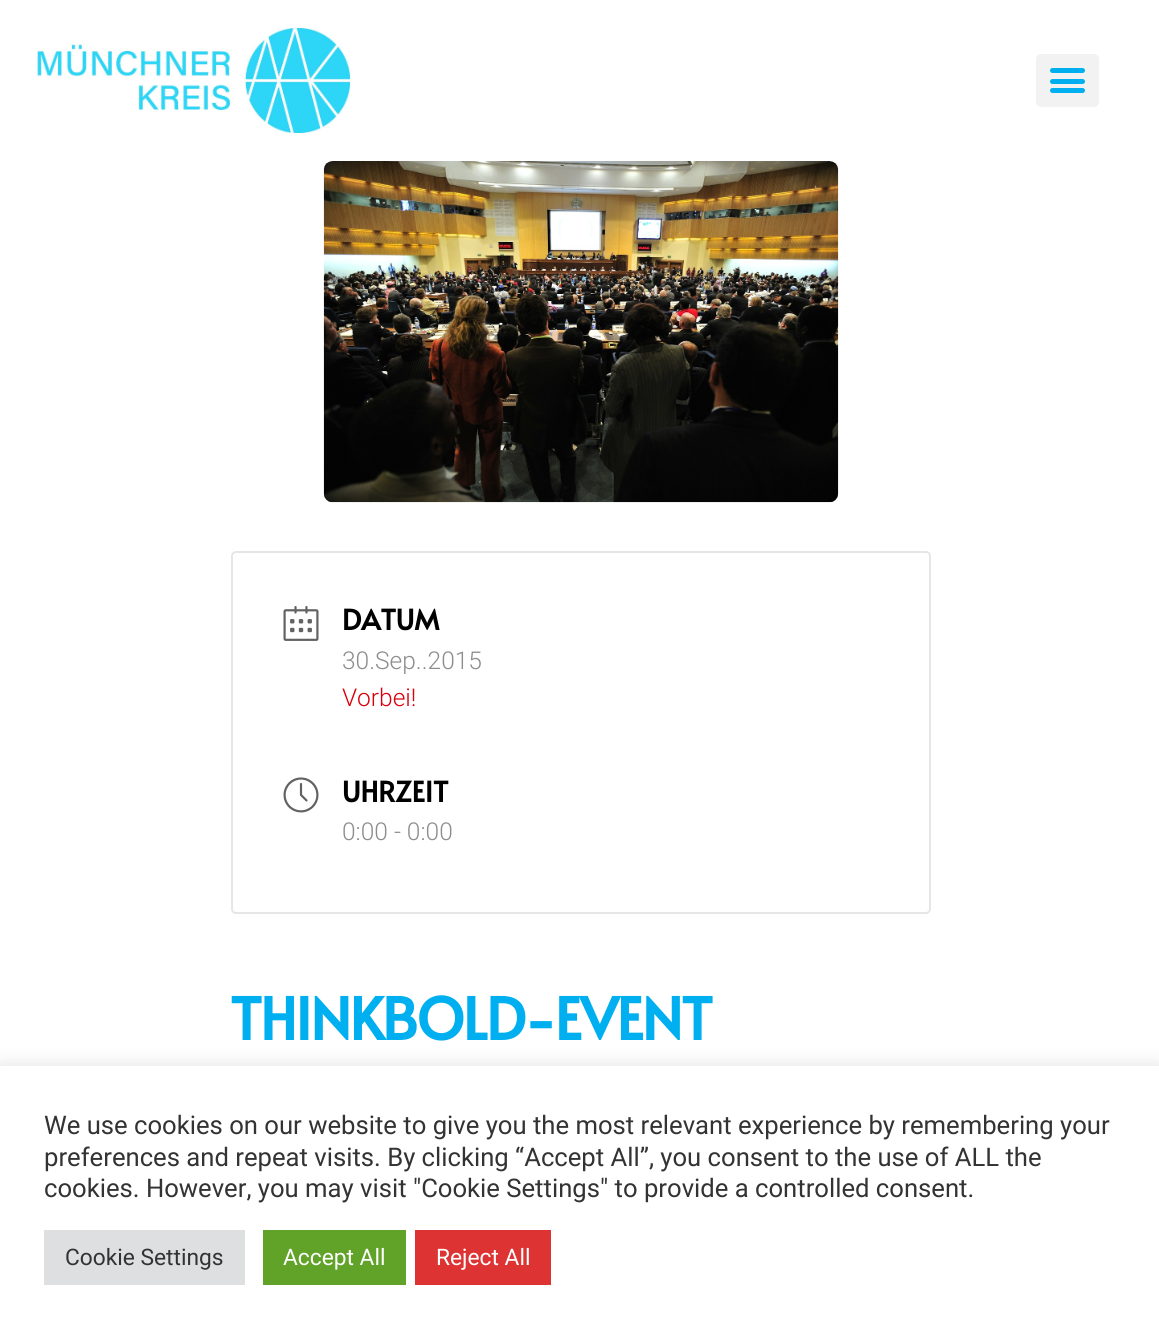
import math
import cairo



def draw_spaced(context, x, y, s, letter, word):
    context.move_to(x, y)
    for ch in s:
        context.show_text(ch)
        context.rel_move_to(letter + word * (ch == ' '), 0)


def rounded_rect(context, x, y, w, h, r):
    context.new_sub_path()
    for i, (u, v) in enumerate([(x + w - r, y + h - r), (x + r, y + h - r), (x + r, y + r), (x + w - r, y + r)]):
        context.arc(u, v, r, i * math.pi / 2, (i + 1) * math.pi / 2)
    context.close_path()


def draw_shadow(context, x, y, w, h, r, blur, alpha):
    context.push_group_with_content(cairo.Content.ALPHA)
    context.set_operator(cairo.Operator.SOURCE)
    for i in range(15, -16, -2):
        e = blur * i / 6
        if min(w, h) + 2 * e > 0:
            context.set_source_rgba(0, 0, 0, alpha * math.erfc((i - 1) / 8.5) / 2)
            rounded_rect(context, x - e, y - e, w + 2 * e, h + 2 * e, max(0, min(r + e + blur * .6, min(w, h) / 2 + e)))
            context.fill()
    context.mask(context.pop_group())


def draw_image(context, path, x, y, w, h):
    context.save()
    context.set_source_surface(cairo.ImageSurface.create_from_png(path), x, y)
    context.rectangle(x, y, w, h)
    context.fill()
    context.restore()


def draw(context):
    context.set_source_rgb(1, 1, 1)
    context.paint()
    draw_image(context, "images/1.png", 37, 28, 313, 105)
    context.set_source_rgb(242 / 255, 242 / 255, 242 / 255)
    rounded_rect(context, 1036, 54, 63, 53, 5)
    context.fill()
    context.set_source_rgb(0, 175 / 255, 240 / 255)
    rounded_rect(context, 1050, 79, 35, 5, 2.5)
    context.fill()
    rounded_rect(context, 1050, 68, 35, 5, 2.5)
    context.fill()
    rounded_rect(context, 1050, 88, 35, 5, 2.5)
    context.fill()
    draw_image(context, "images/2.png", 323, 161, 516, 342)
    rounded_rect(context, 232, 552, 698, 361, 4)
    context.set_source_rgb(230 / 255, 230 / 255, 230 / 255)
    context.stroke()
    draw_image(context, "images/3.png", 283, 606, 36, 35)
    draw_image(context, "images/4.png", 283, 777, 36, 36)
    context.set_source_rgb(172 / 255, 171 / 255, 171 / 255)
    draw_shadow(context, 0, 1064, 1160, 271, 0, 9, 0.3)
    context.set_source_rgb(1, 1, 1)
    context.rectangle(0, 1066, 1159, 271)
    context.fill()
    context.set_source_rgb(222 / 255, 223 / 255, 224 / 255)
    context.rectangle(44, 1230, 201, 55)
    context.fill()
    context.set_source_rgb(97 / 255, 162 / 255, 41 / 255)
    context.rectangle(263, 1230, 143, 55)
    context.fill()
    context.set_source_rgb(221 / 255, 51 / 255, 51 / 255)
    context.rectangle(415, 1230, 136, 55)
    context.fill()
    context.select_font_face("Alata", cairo.FontSlant.NORMAL, cairo.FontWeight.BOLD)
    context.set_font_size(28)
    context.set_source_rgb(0, 0, 0)
    context.move_to(342, 630)
    context.show_text("DATUM")
    context.select_font_face("Roboto Light")
    context.set_font_size(24.5)
    context.set_source_rgb(141 / 255, 141 / 255, 141 / 255)
    context.move_to(342, 669)
    context.show_text("30.Sep..2015")
    context.set_source_rgb(216 / 255, 0, 12 / 255)
    context.move_to(342, 706)
    context.show_text("Vorbei!")
    context.select_font_face("Alata", cairo.FontSlant.NORMAL, cairo.FontWeight.BOLD)
    context.set_font_size(28)
    context.set_source_rgb(0, 0, 0)
    context.move_to(342, 802)
    context.show_text("UHRZEIT")
    context.select_font_face("Roboto Light")
    context.set_font_size(24.5)
    context.set_source_rgb(141 / 255, 141 / 255, 141 / 255)
    context.move_to(342, 840)
    context.show_text("0:00 - 0:00")
    context.select_font_face("Alata", cairo.FontSlant.NORMAL, cairo.FontWeight.BOLD)
    context.set_font_size(57.75)
    context.set_source_rgb(0, 175 / 255, 240 / 255)
    draw_spaced(context, 230, 1040, "THINKBOLD-EVENT", -1.75, 0)
    context.select_font_face("Roboto")
    context.set_font_size(25.65)
    context.set_source_rgb(51 / 255, 51 / 255, 51 / 255)
    context.move_to(44, 1134)
    context.show_text("We use cookies on our website to give you the most relevant experience by remembering your")
    context.move_to(44, 1166)
    context.show_text("preferences and repeat visits. By clicking “Accept All”, you consent to the use of ALL the")
    context.move_to(44, 1197)
    context.show_text("cookies. However, you may visit \"Cookie Settings\" to provide a controlled consent.")
    context.set_font_size(22.75)
    context.move_to(65, 1265)
    context.show_text("Cookie Settings")
    context.set_source_rgb(1, 1, 1)
    context.move_to(283, 1265)
    context.show_text("Accept All")
    context.move_to(436, 1265)
    context.show_text("Reject All")


surface = cairo.ImageSurface(cairo.Format.RGB24, 1159, 1337)
context = cairo.Context(surface)
options = cairo.FontOptions()
options.set_hint_metrics(cairo.HintMetrics.OFF)
options.set_hint_style(cairo.HintStyle.NONE)
context.set_font_options(options)
context.set_miter_limit(4)
draw(context)
surface.write_to_png("out.png")
